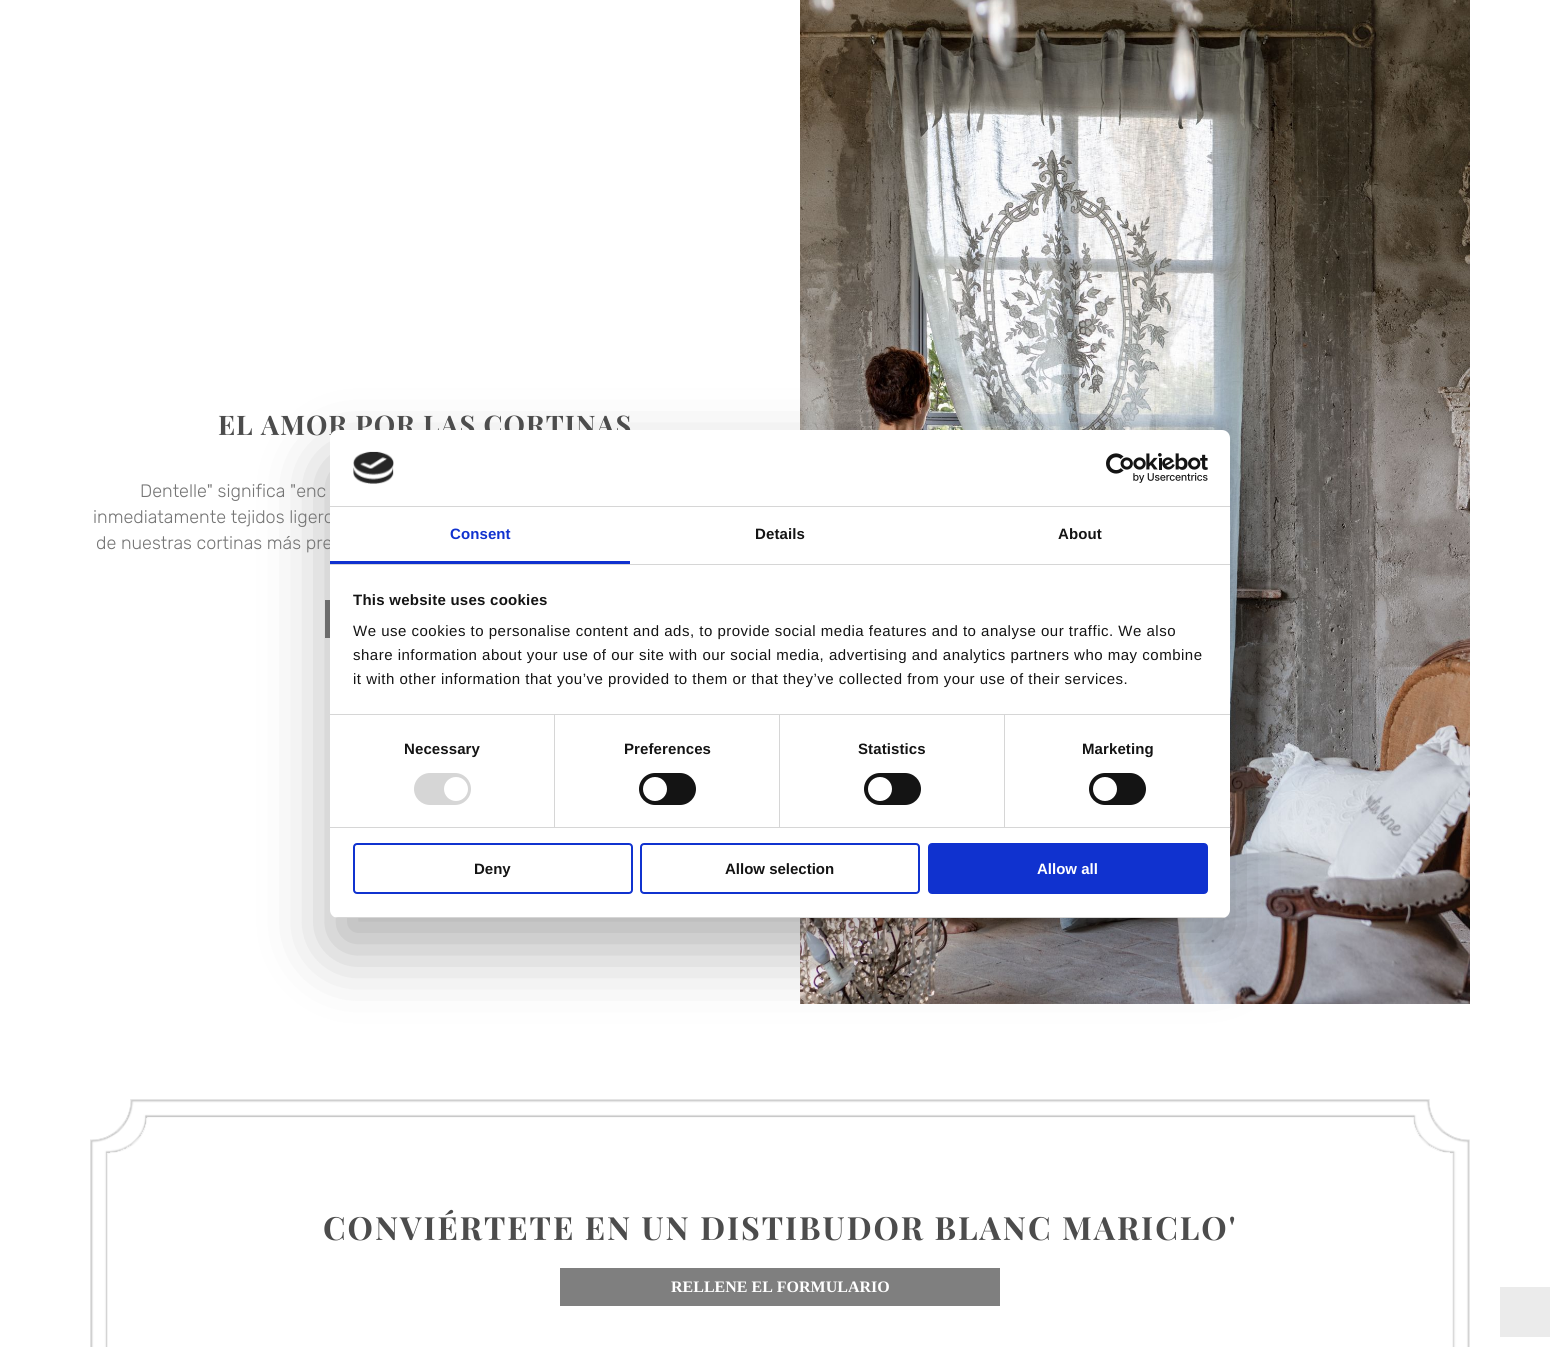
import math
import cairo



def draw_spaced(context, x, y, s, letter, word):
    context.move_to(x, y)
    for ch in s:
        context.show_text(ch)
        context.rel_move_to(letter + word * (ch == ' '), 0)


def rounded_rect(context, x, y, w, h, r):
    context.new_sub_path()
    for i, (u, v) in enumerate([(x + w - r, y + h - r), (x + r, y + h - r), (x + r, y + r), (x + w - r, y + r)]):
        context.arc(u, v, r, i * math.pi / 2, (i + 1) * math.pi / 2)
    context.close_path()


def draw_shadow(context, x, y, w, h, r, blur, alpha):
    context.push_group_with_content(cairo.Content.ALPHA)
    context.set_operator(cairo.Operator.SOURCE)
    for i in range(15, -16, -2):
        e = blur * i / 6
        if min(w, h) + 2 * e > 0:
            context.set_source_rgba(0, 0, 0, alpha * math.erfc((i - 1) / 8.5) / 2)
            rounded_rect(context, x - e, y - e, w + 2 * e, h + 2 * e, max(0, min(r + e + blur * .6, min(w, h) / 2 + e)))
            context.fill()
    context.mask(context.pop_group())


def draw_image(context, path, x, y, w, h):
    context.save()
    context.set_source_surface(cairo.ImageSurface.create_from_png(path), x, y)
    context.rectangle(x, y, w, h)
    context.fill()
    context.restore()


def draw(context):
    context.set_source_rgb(1, 1, 1)
    context.paint()
    context.set_source_rgb(127 / 255, 127 / 255, 127 / 255)
    context.rectangle(325, 600, 5, 38)
    context.fill()
    draw_image(context, "images/1.png", 800, 0, 670, 1004)
    draw_image(context, "images/2.png", 90, 1099, 1380, 248)
    context.rectangle(560, 1268, 440, 38)
    context.fill()
    context.set_source_rgb(235 / 255, 235 / 255, 235 / 255)
    context.rectangle(1500, 1287, 50, 50)
    context.fill()
    context.set_source_rgb(0, 0, 0)
    draw_shadow(context, 330, 462, 900, 488, 8, 34, 0.3)
    context.select_font_face("Playfair Display", cairo.FontSlant.NORMAL, cairo.FontWeight.BOLD)
    context.set_font_size(27)
    context.set_source_rgb(76 / 255, 76 / 255, 76 / 255)
    draw_spaced(context, 218, 435, "EL AMOR POR LAS CORTINAS", 1, 0)
    context.select_font_face("Rubik Light")
    context.set_font_size(18)
    context.set_source_rgb(117 / 255, 117 / 255, 117 / 255)
    context.move_to(140, 497)
    context.show_text("Dentelle\" significa \"enc")
    context.move_to(93, 523)
    context.show_text("inmediatamente tejidos ligero")
    context.move_to(96, 549)
    context.show_text("de nuestras cortinas más pre")
    context.select_font_face("Playfair Display", cairo.FontSlant.NORMAL, cairo.FontWeight.BOLD)
    context.set_font_size(32)
    context.set_source_rgb(76 / 255, 76 / 255, 76 / 255)
    draw_spaced(context, 323, 1240, "CONVIÉRTETE EN UN DISTIBUDOR BLANC MARICLO'", 2, 0)
    context.select_font_face("Liberation Serif", cairo.FontSlant.NORMAL, cairo.FontWeight.BOLD)
    context.set_font_size(16)
    context.set_source_rgb(1, 1, 1)
    context.move_to(671, 1292)
    context.show_text("RELLENE EL FORMULARIO")
    rounded_rect(context, 330, 430, 900, 488, 8)
    context.fill()
    context.set_source_rgb(214 / 255, 214 / 255, 214 / 255)
    context.rectangle(330, 506, 900, 1)
    context.fill()
    draw_image(context, "images/3.png", 353, 451, 41, 33)
    draw_image(context, "images/4.png", 1106, 453, 102, 30)
    context.rectangle(330, 564, 900, 1)
    context.fill()
    context.set_source_rgb(16 / 255, 50 / 255, 207 / 255)
    context.rectangle(330, 561, 300, 3)
    context.fill()
    context.select_font_face("Liberation Sans", cairo.FontSlant.NORMAL, cairo.FontWeight.BOLD)
    context.set_font_size(15)
    draw_spaced(context, 450, 539, "Consent", 0.1, 0)
    context.set_source_rgb(20 / 255, 20 / 255, 20 / 255)
    draw_spaced(context, 755, 539, "Details", 0.1, 0)
    draw_spaced(context, 1058, 539, "About", 0.1, 0)
    context.set_source_rgb(214 / 255, 214 / 255, 214 / 255)
    context.rectangle(330, 714, 900, 1)
    context.fill()
    context.set_source_rgb(20 / 255, 20 / 255, 20 / 255)
    draw_spaced(context, 353, 605, "This website uses cookies", 0.25, 0)
    context.select_font_face("Liberation Sans")
    draw_spaced(context, 353, 636, "We use cookies to personalise content and ads, to provide social media features and to analyse our traffic. We also", 0.5, 0)
    draw_spaced(context, 353, 660, "share information about your use of our site with our social media, advertising and analytics partners who may combine", 0.5, 0)
    draw_spaced(context, 353, 684, "it with other information that you’ve provided to them or that they’ve collected from your use of their services.", 0.5, 0)
    context.set_source_rgb(214 / 255, 214 / 255, 214 / 255)
    context.rectangle(330, 827, 900, 1)
    context.fill()
    context.rectangle(554, 715, 1, 112)
    context.fill()
    context.select_font_face("Liberation Sans", cairo.FontSlant.NORMAL, cairo.FontWeight.BOLD)
    context.set_source_rgb(20 / 255, 20 / 255, 20 / 255)
    draw_spaced(context, 404, 754, "Necessary", 0.1, 0)
    context.set_source_rgb(214 / 255, 214 / 255, 214 / 255)
    rounded_rect(context, 414, 773, 57, 32, 16)
    context.fill()
    context.set_source_rgb(1, 1, 1)
    context.arc(456, 789, 12, 0, 2 * math.pi)
    context.fill()
    context.set_source_rgb(214 / 255, 214 / 255, 214 / 255)
    context.rectangle(779, 715, 1, 112)
    context.fill()
    context.set_source_rgb(20 / 255, 20 / 255, 20 / 255)
    draw_spaced(context, 624, 754, "Preferences", 0.1, 0)
    rounded_rect(context, 639, 773, 57, 32, 16)
    context.fill()
    context.set_source_rgb(1, 1, 1)
    context.arc(655, 789, 12, 0, 2 * math.pi)
    context.fill()
    context.set_source_rgb(214 / 255, 214 / 255, 214 / 255)
    context.rectangle(1004, 715, 1, 112)
    context.fill()
    context.set_source_rgb(20 / 255, 20 / 255, 20 / 255)
    draw_spaced(context, 858, 754, "Statistics", 0.1, 0)
    rounded_rect(context, 864, 773, 57, 32, 16)
    context.fill()
    context.set_source_rgb(1, 1, 1)
    context.arc(880, 789, 12, 0, 2 * math.pi)
    context.fill()
    context.set_source_rgb(20 / 255, 20 / 255, 20 / 255)
    draw_spaced(context, 1082, 754, "Marketing", 0.1, 0)
    rounded_rect(context, 1089, 773, 57, 32, 16)
    context.fill()
    context.set_source_rgb(1, 1, 1)
    context.arc(1105, 789, 12, 0, 2 * math.pi)
    context.fill()
    context.save()
    rounded_rect(context, 330, 430, 900, 488, 8)
    context.clip()
    context.set_source_rgb(214 / 255, 214 / 255, 214 / 255)
    context.rectangle(330, 917, 900, 1)
    context.fill()
    context.restore()
    rounded_rect(context, 354, 844, 278, 49, 3)
    context.set_source_rgb(16 / 255, 50 / 255, 207 / 255)
    context.stroke()
    context.set_source_rgb(20 / 255, 20 / 255, 20 / 255)
    context.move_to(474, 874)
    context.show_text("Deny")
    rounded_rect(context, 641, 844, 278, 49, 3)
    context.set_source_rgb(16 / 255, 50 / 255, 207 / 255)
    context.stroke()
    context.set_source_rgb(20 / 255, 20 / 255, 20 / 255)
    context.move_to(725, 874)
    context.show_text("Allow selection")
    context.set_source_rgb(16 / 255, 50 / 255, 207 / 255)
    rounded_rect(context, 929, 844, 278, 49, 3)
    context.fill_preserve()
    context.stroke()
    context.set_source_rgb(1, 1, 1)
    context.move_to(1037, 874)
    context.show_text("Allow all")


surface = cairo.ImageSurface(cairo.Format.RGB24, 1560, 1347)
context = cairo.Context(surface)
options = cairo.FontOptions()
options.set_hint_metrics(cairo.HintMetrics.OFF)
options.set_hint_style(cairo.HintStyle.NONE)
context.set_font_options(options)
context.set_miter_limit(4)
draw(context)
surface.write_to_png("out.png")
